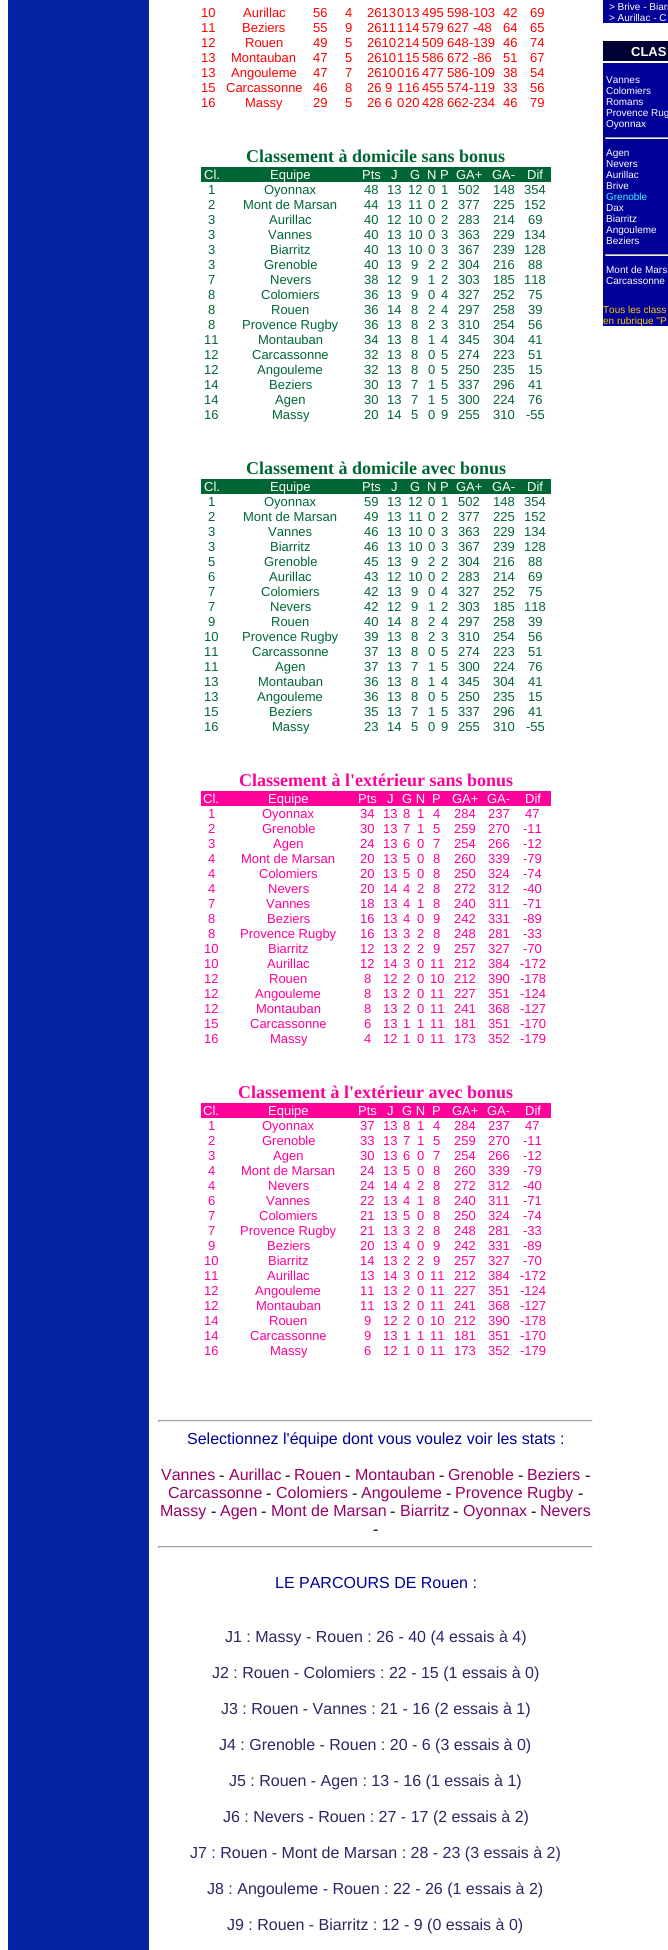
import math
import cairo



def draw(context):
    context.set_source_rgb(1, 1, 1)
    context.paint()
    context.set_source_rgb(6 / 255, 35 / 255, 163 / 255)
    context.rectangle(8, 0, 141, 1950)
    context.fill()
    context.set_source_rgb(0, 102 / 255, 51 / 255)
    context.rectangle(201, 167, 350, 15)
    context.fill()
    context.rectangle(201, 479, 350, 15)
    context.fill()
    context.set_source_rgb(1, 0, 153 / 255)
    context.rectangle(201, 791, 350, 15)
    context.fill()
    context.rectangle(201, 1103, 350, 15)
    context.fill()
    context.set_source_rgb(159 / 255, 159 / 255, 159 / 255)
    context.rectangle(158, 1420, 435, 1)
    context.fill()
    context.set_source_rgb(238 / 255, 238 / 255, 238 / 255)
    context.rectangle(592, 1420, 1, 2)
    context.fill()
    context.rectangle(158, 1421, 435, 1)
    context.fill()
    context.set_source_rgb(159 / 255, 159 / 255, 159 / 255)
    context.rectangle(158, 1420, 1, 2)
    context.fill()
    context.rectangle(158, 1546, 435, 1)
    context.fill()
    context.set_source_rgb(238 / 255, 238 / 255, 238 / 255)
    context.rectangle(592, 1546, 1, 2)
    context.fill()
    context.rectangle(158, 1547, 435, 1)
    context.fill()
    context.set_source_rgb(159 / 255, 159 / 255, 159 / 255)
    context.rectangle(158, 1546, 1, 2)
    context.fill()
    context.set_source_rgb(0, 0, 153 / 255)
    context.rectangle(603, 0, 65, 23)
    context.fill()
    context.set_source_rgb(0, 0, 51 / 255)
    context.rectangle(603, 41, 65, 20)
    context.fill()
    context.set_source_rgb(0, 0, 153 / 255)
    context.rectangle(603, 63, 65, 263)
    context.fill()
    context.set_source_rgb(159 / 255, 159 / 255, 159 / 255)
    context.rectangle(605, 137, 63, 1)
    context.fill()
    context.set_source_rgb(238 / 255, 238 / 255, 238 / 255)
    context.rectangle(605, 138, 63, 1)
    context.fill()
    context.set_source_rgb(159 / 255, 159 / 255, 159 / 255)
    context.rectangle(605, 137, 1, 2)
    context.fill()
    context.rectangle(605, 254, 63, 1)
    context.fill()
    context.set_source_rgb(238 / 255, 238 / 255, 238 / 255)
    context.rectangle(605, 255, 63, 1)
    context.fill()
    context.set_source_rgb(159 / 255, 159 / 255, 159 / 255)
    context.rectangle(605, 254, 1, 2)
    context.fill()
    context.select_font_face("Liberation Sans")
    context.set_font_size(13)
    context.set_source_rgb(1, 0, 0)
    context.move_to(201, 17)
    context.show_text("10")
    context.move_to(243, 17)
    context.show_text("Aurillac")
    context.move_to(313, 17)
    context.show_text("56")
    context.move_to(345, 17)
    context.show_text("4")
    context.move_to(367, 17)
    context.show_text("2613")
    context.move_to(397, 17)
    context.show_text("0")
    context.move_to(405, 17)
    context.show_text("13")
    context.move_to(422, 17)
    context.show_text("495")
    context.move_to(447, 17)
    context.show_text("598")
    context.move_to(469, 17)
    context.show_text("-103")
    context.move_to(503, 17)
    context.show_text("42")
    context.move_to(530, 17)
    context.show_text("69")
    context.move_to(201, 32)
    context.show_text("11")
    context.move_to(242, 32)
    context.show_text("Beziers")
    context.move_to(313, 32)
    context.show_text("55")
    context.move_to(345, 32)
    context.show_text("9")
    context.move_to(367, 32)
    context.show_text("2611")
    context.move_to(397, 32)
    context.show_text("1")
    context.move_to(405, 32)
    context.show_text("14")
    context.move_to(422, 32)
    context.show_text("579")
    context.move_to(447, 32)
    context.show_text("627")
    context.move_to(473, 32)
    context.show_text("-48")
    context.move_to(503, 32)
    context.show_text("64")
    context.move_to(530, 32)
    context.show_text("65")
    context.move_to(201, 47)
    context.show_text("12")
    context.move_to(245, 47)
    context.show_text("Rouen")
    context.move_to(313, 47)
    context.show_text("49")
    context.move_to(345, 47)
    context.show_text("5")
    context.move_to(367, 47)
    context.show_text("2610")
    context.move_to(397, 47)
    context.show_text("2")
    context.move_to(405, 47)
    context.show_text("14")
    context.move_to(422, 47)
    context.show_text("509")
    context.move_to(447, 47)
    context.show_text("648")
    context.move_to(469, 47)
    context.show_text("-139")
    context.move_to(503, 47)
    context.show_text("46")
    context.move_to(530, 47)
    context.show_text("74")
    context.move_to(201, 62)
    context.show_text("13")
    context.move_to(231, 62)
    context.show_text("Montauban")
    context.move_to(313, 62)
    context.show_text("47")
    context.move_to(345, 62)
    context.show_text("5")
    context.move_to(367, 62)
    context.show_text("2610")
    context.move_to(397, 62)
    context.show_text("1")
    context.move_to(405, 62)
    context.show_text("15")
    context.move_to(422, 62)
    context.show_text("586")
    context.move_to(447, 62)
    context.show_text("672")
    context.move_to(473, 62)
    context.show_text("-86")
    context.move_to(503, 62)
    context.show_text("51")
    context.move_to(530, 62)
    context.show_text("67")
    context.move_to(201, 77)
    context.show_text("13")
    context.move_to(231, 77)
    context.show_text("Angouleme")
    context.move_to(313, 77)
    context.show_text("47")
    context.move_to(345, 77)
    context.show_text("7")
    context.move_to(367, 77)
    context.show_text("2610")
    context.move_to(397, 77)
    context.show_text("0")
    context.move_to(405, 77)
    context.show_text("16")
    context.move_to(422, 77)
    context.show_text("477")
    context.move_to(447, 77)
    context.show_text("586")
    context.move_to(469, 77)
    context.show_text("-109")
    context.move_to(503, 77)
    context.show_text("38")
    context.move_to(530, 77)
    context.show_text("54")
    context.move_to(201, 92)
    context.show_text("15")
    context.move_to(226, 92)
    context.show_text("Carcassonne")
    context.move_to(313, 92)
    context.show_text("46")
    context.move_to(345, 92)
    context.show_text("8")
    context.move_to(367, 92)
    context.show_text("26 9")
    context.move_to(397, 92)
    context.show_text("1")
    context.move_to(405, 92)
    context.show_text("16")
    context.move_to(422, 92)
    context.show_text("455")
    context.move_to(447, 92)
    context.show_text("574")
    context.move_to(469, 92)
    context.show_text("-119")
    context.move_to(503, 92)
    context.show_text("33")
    context.move_to(530, 92)
    context.show_text("56")
    context.move_to(201, 107)
    context.show_text("16")
    context.move_to(245, 107)
    context.show_text("Massy")
    context.move_to(313, 107)
    context.show_text("29")
    context.move_to(345, 107)
    context.show_text("5")
    context.move_to(367, 107)
    context.show_text("26 6")
    context.move_to(397, 107)
    context.show_text("0")
    context.move_to(405, 107)
    context.show_text("20")
    context.move_to(422, 107)
    context.show_text("428")
    context.move_to(447, 107)
    context.show_text("662")
    context.move_to(469, 107)
    context.show_text("-234")
    context.move_to(503, 107)
    context.show_text("46")
    context.move_to(530, 107)
    context.show_text("79")
    context.select_font_face("Liberation Serif", cairo.FontSlant.NORMAL, cairo.FontWeight.BOLD)
    context.set_font_size(18)
    context.set_source_rgb(0, 102 / 255, 51 / 255)
    context.move_to(246, 162)
    context.show_text("Classement à domicile sans bonus")
    context.select_font_face("Liberation Sans")
    context.set_font_size(13)
    context.set_source_rgb(1, 1, 1)
    context.move_to(204, 179)
    context.show_text("Cl.")
    context.move_to(270, 179)
    context.show_text("Equipe")
    context.move_to(362, 179)
    context.show_text("Pts")
    context.move_to(391, 179)
    context.show_text("J")
    context.move_to(410, 179)
    context.show_text("G")
    context.move_to(427, 179)
    context.show_text("N P")
    context.move_to(456, 179)
    context.show_text("GA+")
    context.move_to(492, 179)
    context.show_text("GA-")
    context.move_to(527, 179)
    context.show_text("Dif")
    context.set_source_rgb(0, 102 / 255, 51 / 255)
    context.move_to(208, 194)
    context.show_text("1")
    context.move_to(264, 194)
    context.show_text("Oyonnax")
    context.move_to(364, 194)
    context.show_text("48")
    context.move_to(387, 194)
    context.show_text("13")
    context.move_to(408, 194)
    context.show_text("12")
    context.move_to(428, 194)
    context.show_text("0")
    context.move_to(441, 194)
    context.show_text("1")
    context.move_to(458, 194)
    context.show_text("502")
    context.move_to(493, 194)
    context.show_text("148")
    context.move_to(524, 194)
    context.show_text("354")
    context.move_to(208, 209)
    context.show_text("2")
    context.move_to(243, 209)
    context.show_text("Mont de Marsan")
    context.move_to(364, 209)
    context.show_text("44")
    context.move_to(387, 209)
    context.show_text("13")
    context.move_to(408, 209)
    context.show_text("11")
    context.move_to(428, 209)
    context.show_text("0")
    context.move_to(441, 209)
    context.show_text("2")
    context.move_to(458, 209)
    context.show_text("377")
    context.move_to(493, 209)
    context.show_text("225")
    context.move_to(524, 209)
    context.show_text("152")
    context.move_to(208, 224)
    context.show_text("3")
    context.move_to(269, 224)
    context.show_text("Aurillac")
    context.move_to(364, 224)
    context.show_text("40")
    context.move_to(387, 224)
    context.show_text("12")
    context.move_to(408, 224)
    context.show_text("10")
    context.move_to(428, 224)
    context.show_text("0")
    context.move_to(441, 224)
    context.show_text("2")
    context.move_to(458, 224)
    context.show_text("283")
    context.move_to(493, 224)
    context.show_text("214")
    context.move_to(528, 224)
    context.show_text("69")
    context.move_to(208, 239)
    context.show_text("3")
    context.move_to(268, 239)
    context.show_text("Vannes")
    context.move_to(364, 239)
    context.show_text("40")
    context.move_to(387, 239)
    context.show_text("13")
    context.move_to(408, 239)
    context.show_text("10")
    context.move_to(428, 239)
    context.show_text("0")
    context.move_to(441, 239)
    context.show_text("3")
    context.move_to(458, 239)
    context.show_text("363")
    context.move_to(493, 239)
    context.show_text("229")
    context.move_to(524, 239)
    context.show_text("134")
    context.move_to(208, 254)
    context.show_text("3")
    context.move_to(270, 254)
    context.show_text("Biarritz")
    context.move_to(364, 254)
    context.show_text("40")
    context.move_to(387, 254)
    context.show_text("13")
    context.move_to(408, 254)
    context.show_text("10")
    context.move_to(428, 254)
    context.show_text("0")
    context.move_to(441, 254)
    context.show_text("3")
    context.move_to(458, 254)
    context.show_text("367")
    context.move_to(493, 254)
    context.show_text("239")
    context.move_to(524, 254)
    context.show_text("128")
    context.move_to(208, 269)
    context.show_text("3")
    context.move_to(264, 269)
    context.show_text("Grenoble")
    context.move_to(364, 269)
    context.show_text("40")
    context.move_to(387, 269)
    context.show_text("13")
    context.move_to(411, 269)
    context.show_text("9")
    context.move_to(428, 269)
    context.show_text("2")
    context.move_to(441, 269)
    context.show_text("2")
    context.move_to(458, 269)
    context.show_text("304")
    context.move_to(493, 269)
    context.show_text("216")
    context.move_to(528, 269)
    context.show_text("88")
    context.move_to(208, 284)
    context.show_text("7")
    context.move_to(270, 284)
    context.show_text("Nevers")
    context.move_to(364, 284)
    context.show_text("38")
    context.move_to(387, 284)
    context.show_text("12")
    context.move_to(411, 284)
    context.show_text("9")
    context.move_to(428, 284)
    context.show_text("1")
    context.move_to(441, 284)
    context.show_text("2")
    context.move_to(458, 284)
    context.show_text("303")
    context.move_to(493, 284)
    context.show_text("185")
    context.move_to(524, 284)
    context.show_text("118")
    context.move_to(208, 299)
    context.show_text("8")
    context.move_to(261, 299)
    context.show_text("Colomiers")
    context.move_to(364, 299)
    context.show_text("36")
    context.move_to(387, 299)
    context.show_text("13")
    context.move_to(411, 299)
    context.show_text("9")
    context.move_to(428, 299)
    context.show_text("0")
    context.move_to(441, 299)
    context.show_text("4")
    context.move_to(458, 299)
    context.show_text("327")
    context.move_to(493, 299)
    context.show_text("252")
    context.move_to(528, 299)
    context.show_text("75")
    context.move_to(208, 314)
    context.show_text("8")
    context.move_to(271, 314)
    context.show_text("Rouen")
    context.move_to(364, 314)
    context.show_text("36")
    context.move_to(387, 314)
    context.show_text("14")
    context.move_to(411, 314)
    context.show_text("8")
    context.move_to(428, 314)
    context.show_text("2")
    context.move_to(441, 314)
    context.show_text("4")
    context.move_to(458, 314)
    context.show_text("297")
    context.move_to(493, 314)
    context.show_text("258")
    context.move_to(528, 314)
    context.show_text("39")
    context.move_to(208, 329)
    context.show_text("8")
    context.move_to(242, 329)
    context.show_text("Provence Rugby")
    context.move_to(364, 329)
    context.show_text("36")
    context.move_to(387, 329)
    context.show_text("13")
    context.move_to(411, 329)
    context.show_text("8")
    context.move_to(428, 329)
    context.show_text("2")
    context.move_to(441, 329)
    context.show_text("3")
    context.move_to(458, 329)
    context.show_text("310")
    context.move_to(493, 329)
    context.show_text("254")
    context.move_to(528, 329)
    context.show_text("56")
    context.move_to(204, 344)
    context.show_text("11")
    context.move_to(258, 344)
    context.show_text("Montauban")
    context.move_to(364, 344)
    context.show_text("34")
    context.move_to(387, 344)
    context.show_text("13")
    context.move_to(411, 344)
    context.show_text("8")
    context.move_to(428, 344)
    context.show_text("1")
    context.move_to(441, 344)
    context.show_text("4")
    context.move_to(458, 344)
    context.show_text("345")
    context.move_to(493, 344)
    context.show_text("304")
    context.move_to(528, 344)
    context.show_text("41")
    context.move_to(204, 359)
    context.show_text("12")
    context.move_to(252, 359)
    context.show_text("Carcassonne")
    context.move_to(364, 359)
    context.show_text("32")
    context.move_to(387, 359)
    context.show_text("13")
    context.move_to(411, 359)
    context.show_text("8")
    context.move_to(428, 359)
    context.show_text("0")
    context.move_to(441, 359)
    context.show_text("5")
    context.move_to(458, 359)
    context.show_text("274")
    context.move_to(493, 359)
    context.show_text("223")
    context.move_to(528, 359)
    context.show_text("51")
    context.move_to(204, 374)
    context.show_text("12")
    context.move_to(257, 374)
    context.show_text("Angouleme")
    context.move_to(364, 374)
    context.show_text("32")
    context.move_to(387, 374)
    context.show_text("13")
    context.move_to(411, 374)
    context.show_text("8")
    context.move_to(428, 374)
    context.show_text("0")
    context.move_to(441, 374)
    context.show_text("5")
    context.move_to(458, 374)
    context.show_text("250")
    context.move_to(493, 374)
    context.show_text("235")
    context.move_to(528, 374)
    context.show_text("15")
    context.move_to(204, 389)
    context.show_text("14")
    context.move_to(269, 389)
    context.show_text("Beziers")
    context.move_to(364, 389)
    context.show_text("30")
    context.move_to(387, 389)
    context.show_text("13")
    context.move_to(411, 389)
    context.show_text("7")
    context.move_to(428, 389)
    context.show_text("1")
    context.move_to(441, 389)
    context.show_text("5")
    context.move_to(458, 389)
    context.show_text("337")
    context.move_to(493, 389)
    context.show_text("296")
    context.move_to(528, 389)
    context.show_text("41")
    context.move_to(204, 404)
    context.show_text("14")
    context.move_to(275, 404)
    context.show_text("Agen")
    context.move_to(364, 404)
    context.show_text("30")
    context.move_to(387, 404)
    context.show_text("13")
    context.move_to(411, 404)
    context.show_text("7")
    context.move_to(428, 404)
    context.show_text("1")
    context.move_to(441, 404)
    context.show_text("5")
    context.move_to(458, 404)
    context.show_text("300")
    context.move_to(493, 404)
    context.show_text("224")
    context.move_to(528, 404)
    context.show_text("76")
    context.move_to(204, 419)
    context.show_text("16")
    context.move_to(272, 419)
    context.show_text("Massy")
    context.move_to(364, 419)
    context.show_text("20")
    context.move_to(387, 419)
    context.show_text("14")
    context.move_to(411, 419)
    context.show_text("5")
    context.move_to(428, 419)
    context.show_text("0")
    context.move_to(441, 419)
    context.show_text("9")
    context.move_to(458, 419)
    context.show_text("255")
    context.move_to(493, 419)
    context.show_text("310")
    context.move_to(526, 419)
    context.show_text("-55")
    context.select_font_face("Liberation Serif", cairo.FontSlant.NORMAL, cairo.FontWeight.BOLD)
    context.set_font_size(18)
    context.move_to(246, 474)
    context.show_text("Classement à domicile avec bonus")
    context.select_font_face("Liberation Sans")
    context.set_font_size(13)
    context.set_source_rgb(1, 1, 1)
    context.move_to(204, 491)
    context.show_text("Cl.")
    context.move_to(270, 491)
    context.show_text("Equipe")
    context.move_to(362, 491)
    context.show_text("Pts")
    context.move_to(391, 491)
    context.show_text("J")
    context.move_to(410, 491)
    context.show_text("G")
    context.move_to(427, 491)
    context.show_text("N P")
    context.move_to(456, 491)
    context.show_text("GA+")
    context.move_to(492, 491)
    context.show_text("GA-")
    context.move_to(527, 491)
    context.show_text("Dif")
    context.set_source_rgb(0, 102 / 255, 51 / 255)
    context.move_to(208, 506)
    context.show_text("1")
    context.move_to(264, 506)
    context.show_text("Oyonnax")
    context.move_to(364, 506)
    context.show_text("59")
    context.move_to(387, 506)
    context.show_text("13")
    context.move_to(408, 506)
    context.show_text("12")
    context.move_to(428, 506)
    context.show_text("0")
    context.move_to(441, 506)
    context.show_text("1")
    context.move_to(458, 506)
    context.show_text("502")
    context.move_to(493, 506)
    context.show_text("148")
    context.move_to(524, 506)
    context.show_text("354")
    context.move_to(208, 521)
    context.show_text("2")
    context.move_to(243, 521)
    context.show_text("Mont de Marsan")
    context.move_to(364, 521)
    context.show_text("49")
    context.move_to(387, 521)
    context.show_text("13")
    context.move_to(408, 521)
    context.show_text("11")
    context.move_to(428, 521)
    context.show_text("0")
    context.move_to(441, 521)
    context.show_text("2")
    context.move_to(458, 521)
    context.show_text("377")
    context.move_to(493, 521)
    context.show_text("225")
    context.move_to(524, 521)
    context.show_text("152")
    context.move_to(208, 536)
    context.show_text("3")
    context.move_to(268, 536)
    context.show_text("Vannes")
    context.move_to(364, 536)
    context.show_text("46")
    context.move_to(387, 536)
    context.show_text("13")
    context.move_to(408, 536)
    context.show_text("10")
    context.move_to(428, 536)
    context.show_text("0")
    context.move_to(441, 536)
    context.show_text("3")
    context.move_to(458, 536)
    context.show_text("363")
    context.move_to(493, 536)
    context.show_text("229")
    context.move_to(524, 536)
    context.show_text("134")
    context.move_to(208, 551)
    context.show_text("3")
    context.move_to(270, 551)
    context.show_text("Biarritz")
    context.move_to(364, 551)
    context.show_text("46")
    context.move_to(387, 551)
    context.show_text("13")
    context.move_to(408, 551)
    context.show_text("10")
    context.move_to(428, 551)
    context.show_text("0")
    context.move_to(441, 551)
    context.show_text("3")
    context.move_to(458, 551)
    context.show_text("367")
    context.move_to(493, 551)
    context.show_text("239")
    context.move_to(524, 551)
    context.show_text("128")
    context.move_to(208, 566)
    context.show_text("5")
    context.move_to(264, 566)
    context.show_text("Grenoble")
    context.move_to(364, 566)
    context.show_text("45")
    context.move_to(387, 566)
    context.show_text("13")
    context.move_to(411, 566)
    context.show_text("9")
    context.move_to(428, 566)
    context.show_text("2")
    context.move_to(441, 566)
    context.show_text("2")
    context.move_to(458, 566)
    context.show_text("304")
    context.move_to(493, 566)
    context.show_text("216")
    context.move_to(528, 566)
    context.show_text("88")
    context.move_to(208, 581)
    context.show_text("6")
    context.move_to(269, 581)
    context.show_text("Aurillac")
    context.move_to(364, 581)
    context.show_text("43")
    context.move_to(387, 581)
    context.show_text("12")
    context.move_to(408, 581)
    context.show_text("10")
    context.move_to(428, 581)
    context.show_text("0")
    context.move_to(441, 581)
    context.show_text("2")
    context.move_to(458, 581)
    context.show_text("283")
    context.move_to(493, 581)
    context.show_text("214")
    context.move_to(528, 581)
    context.show_text("69")
    context.move_to(208, 596)
    context.show_text("7")
    context.move_to(261, 596)
    context.show_text("Colomiers")
    context.move_to(364, 596)
    context.show_text("42")
    context.move_to(387, 596)
    context.show_text("13")
    context.move_to(411, 596)
    context.show_text("9")
    context.move_to(428, 596)
    context.show_text("0")
    context.move_to(441, 596)
    context.show_text("4")
    context.move_to(458, 596)
    context.show_text("327")
    context.move_to(493, 596)
    context.show_text("252")
    context.move_to(528, 596)
    context.show_text("75")
    context.move_to(208, 611)
    context.show_text("7")
    context.move_to(270, 611)
    context.show_text("Nevers")
    context.move_to(364, 611)
    context.show_text("42")
    context.move_to(387, 611)
    context.show_text("12")
    context.move_to(411, 611)
    context.show_text("9")
    context.move_to(428, 611)
    context.show_text("1")
    context.move_to(441, 611)
    context.show_text("2")
    context.move_to(458, 611)
    context.show_text("303")
    context.move_to(493, 611)
    context.show_text("185")
    context.move_to(524, 611)
    context.show_text("118")
    context.move_to(208, 626)
    context.show_text("9")
    context.move_to(271, 626)
    context.show_text("Rouen")
    context.move_to(364, 626)
    context.show_text("40")
    context.move_to(387, 626)
    context.show_text("14")
    context.move_to(411, 626)
    context.show_text("8")
    context.move_to(428, 626)
    context.show_text("2")
    context.move_to(441, 626)
    context.show_text("4")
    context.move_to(458, 626)
    context.show_text("297")
    context.move_to(493, 626)
    context.show_text("258")
    context.move_to(528, 626)
    context.show_text("39")
    context.move_to(204, 641)
    context.show_text("10")
    context.move_to(242, 641)
    context.show_text("Provence Rugby")
    context.move_to(364, 641)
    context.show_text("39")
    context.move_to(387, 641)
    context.show_text("13")
    context.move_to(411, 641)
    context.show_text("8")
    context.move_to(428, 641)
    context.show_text("2")
    context.move_to(441, 641)
    context.show_text("3")
    context.move_to(458, 641)
    context.show_text("310")
    context.move_to(493, 641)
    context.show_text("254")
    context.move_to(528, 641)
    context.show_text("56")
    context.move_to(204, 656)
    context.show_text("11")
    context.move_to(252, 656)
    context.show_text("Carcassonne")
    context.move_to(364, 656)
    context.show_text("37")
    context.move_to(387, 656)
    context.show_text("13")
    context.move_to(411, 656)
    context.show_text("8")
    context.move_to(428, 656)
    context.show_text("0")
    context.move_to(441, 656)
    context.show_text("5")
    context.move_to(458, 656)
    context.show_text("274")
    context.move_to(493, 656)
    context.show_text("223")
    context.move_to(528, 656)
    context.show_text("51")
    context.move_to(204, 671)
    context.show_text("11")
    context.move_to(275, 671)
    context.show_text("Agen")
    context.move_to(364, 671)
    context.show_text("37")
    context.move_to(387, 671)
    context.show_text("13")
    context.move_to(411, 671)
    context.show_text("7")
    context.move_to(428, 671)
    context.show_text("1")
    context.move_to(441, 671)
    context.show_text("5")
    context.move_to(458, 671)
    context.show_text("300")
    context.move_to(493, 671)
    context.show_text("224")
    context.move_to(528, 671)
    context.show_text("76")
    context.move_to(204, 686)
    context.show_text("13")
    context.move_to(258, 686)
    context.show_text("Montauban")
    context.move_to(364, 686)
    context.show_text("36")
    context.move_to(387, 686)
    context.show_text("13")
    context.move_to(411, 686)
    context.show_text("8")
    context.move_to(428, 686)
    context.show_text("1")
    context.move_to(441, 686)
    context.show_text("4")
    context.move_to(458, 686)
    context.show_text("345")
    context.move_to(493, 686)
    context.show_text("304")
    context.move_to(528, 686)
    context.show_text("41")
    context.move_to(204, 701)
    context.show_text("13")
    context.move_to(257, 701)
    context.show_text("Angouleme")
    context.move_to(364, 701)
    context.show_text("36")
    context.move_to(387, 701)
    context.show_text("13")
    context.move_to(411, 701)
    context.show_text("8")
    context.move_to(428, 701)
    context.show_text("0")
    context.move_to(441, 701)
    context.show_text("5")
    context.move_to(458, 701)
    context.show_text("250")
    context.move_to(493, 701)
    context.show_text("235")
    context.move_to(528, 701)
    context.show_text("15")
    context.move_to(204, 716)
    context.show_text("15")
    context.move_to(269, 716)
    context.show_text("Beziers")
    context.move_to(364, 716)
    context.show_text("35")
    context.move_to(387, 716)
    context.show_text("13")
    context.move_to(411, 716)
    context.show_text("7")
    context.move_to(428, 716)
    context.show_text("1")
    context.move_to(441, 716)
    context.show_text("5")
    context.move_to(458, 716)
    context.show_text("337")
    context.move_to(493, 716)
    context.show_text("296")
    context.move_to(528, 716)
    context.show_text("41")
    context.move_to(204, 731)
    context.show_text("16")
    context.move_to(272, 731)
    context.show_text("Massy")
    context.move_to(364, 731)
    context.show_text("23")
    context.move_to(387, 731)
    context.show_text("14")
    context.move_to(411, 731)
    context.show_text("5")
    context.move_to(428, 731)
    context.show_text("0")
    context.move_to(441, 731)
    context.show_text("9")
    context.move_to(458, 731)
    context.show_text("255")
    context.move_to(493, 731)
    context.show_text("310")
    context.move_to(526, 731)
    context.show_text("-55")
    context.select_font_face("Liberation Serif", cairo.FontSlant.NORMAL, cairo.FontWeight.BOLD)
    context.set_font_size(18)
    context.set_source_rgb(1, 0, 153 / 255)
    context.move_to(239, 786)
    context.show_text("Classement à l'extérieur sans bonus")
    context.select_font_face("Liberation Sans")
    context.set_font_size(13)
    context.set_source_rgb(1, 1, 1)
    context.move_to(203, 803)
    context.show_text("Cl.")
    context.move_to(268, 803)
    context.show_text("Equipe")
    context.move_to(358, 803)
    context.show_text("Pts")
    context.move_to(387, 803)
    context.show_text("J")
    context.move_to(402, 803)
    context.show_text("G N")
    context.move_to(432, 803)
    context.show_text("P")
    context.move_to(452, 803)
    context.show_text("GA+")
    context.move_to(487, 803)
    context.show_text("GA-")
    context.move_to(525, 803)
    context.show_text("Dif")
    context.set_source_rgb(1, 0, 153 / 255)
    context.move_to(208, 818)
    context.show_text("1")
    context.move_to(262, 818)
    context.show_text("Oyonnax")
    context.move_to(360, 818)
    context.show_text("34")
    context.move_to(383, 818)
    context.show_text("13")
    context.move_to(403, 818)
    context.show_text("8")
    context.move_to(417, 818)
    context.show_text("1")
    context.move_to(433, 818)
    context.show_text("4")
    context.move_to(454, 818)
    context.show_text("284")
    context.move_to(488, 818)
    context.show_text("237")
    context.move_to(525, 818)
    context.show_text("47")
    context.move_to(208, 833)
    context.show_text("2")
    context.move_to(262, 833)
    context.show_text("Grenoble")
    context.move_to(360, 833)
    context.show_text("30")
    context.move_to(383, 833)
    context.show_text("13")
    context.move_to(403, 833)
    context.show_text("7")
    context.move_to(417, 833)
    context.show_text("1")
    context.move_to(433, 833)
    context.show_text("5")
    context.move_to(454, 833)
    context.show_text("259")
    context.move_to(488, 833)
    context.show_text("270")
    context.move_to(523, 833)
    context.show_text("-11")
    context.move_to(208, 848)
    context.show_text("3")
    context.move_to(273, 848)
    context.show_text("Agen")
    context.move_to(360, 848)
    context.show_text("24")
    context.move_to(383, 848)
    context.show_text("13")
    context.move_to(403, 848)
    context.show_text("6")
    context.move_to(417, 848)
    context.show_text("0")
    context.move_to(433, 848)
    context.show_text("7")
    context.move_to(454, 848)
    context.show_text("254")
    context.move_to(488, 848)
    context.show_text("266")
    context.move_to(523, 848)
    context.show_text("-12")
    context.move_to(208, 863)
    context.show_text("4")
    context.move_to(241, 863)
    context.show_text("Mont de Marsan")
    context.move_to(360, 863)
    context.show_text("20")
    context.move_to(383, 863)
    context.show_text("13")
    context.move_to(403, 863)
    context.show_text("5")
    context.move_to(417, 863)
    context.show_text("0")
    context.move_to(433, 863)
    context.show_text("8")
    context.move_to(454, 863)
    context.show_text("260")
    context.move_to(488, 863)
    context.show_text("339")
    context.move_to(523, 863)
    context.show_text("-79")
    context.move_to(208, 878)
    context.show_text("4")
    context.move_to(259, 878)
    context.show_text("Colomiers")
    context.move_to(360, 878)
    context.show_text("20")
    context.move_to(383, 878)
    context.show_text("13")
    context.move_to(403, 878)
    context.show_text("5")
    context.move_to(417, 878)
    context.show_text("0")
    context.move_to(433, 878)
    context.show_text("8")
    context.move_to(454, 878)
    context.show_text("250")
    context.move_to(488, 878)
    context.show_text("324")
    context.move_to(523, 878)
    context.show_text("-74")
    context.move_to(208, 893)
    context.show_text("4")
    context.move_to(268, 893)
    context.show_text("Nevers")
    context.move_to(360, 893)
    context.show_text("20")
    context.move_to(383, 893)
    context.show_text("14")
    context.move_to(403, 893)
    context.show_text("4")
    context.move_to(417, 893)
    context.show_text("2")
    context.move_to(433, 893)
    context.show_text("8")
    context.move_to(454, 893)
    context.show_text("272")
    context.move_to(488, 893)
    context.show_text("312")
    context.move_to(523, 893)
    context.show_text("-40")
    context.move_to(208, 908)
    context.show_text("7")
    context.move_to(266, 908)
    context.show_text("Vannes")
    context.move_to(360, 908)
    context.show_text("18")
    context.move_to(383, 908)
    context.show_text("13")
    context.move_to(403, 908)
    context.show_text("4")
    context.move_to(417, 908)
    context.show_text("1")
    context.move_to(433, 908)
    context.show_text("8")
    context.move_to(454, 908)
    context.show_text("240")
    context.move_to(488, 908)
    context.show_text("311")
    context.move_to(523, 908)
    context.show_text("-71")
    context.move_to(208, 923)
    context.show_text("8")
    context.move_to(267, 923)
    context.show_text("Beziers")
    context.move_to(360, 923)
    context.show_text("16")
    context.move_to(383, 923)
    context.show_text("13")
    context.move_to(403, 923)
    context.show_text("4")
    context.move_to(417, 923)
    context.show_text("0")
    context.move_to(433, 923)
    context.show_text("9")
    context.move_to(454, 923)
    context.show_text("242")
    context.move_to(488, 923)
    context.show_text("331")
    context.move_to(523, 923)
    context.show_text("-89")
    context.move_to(208, 938)
    context.show_text("8")
    context.move_to(240, 938)
    context.show_text("Provence Rugby")
    context.move_to(360, 938)
    context.show_text("16")
    context.move_to(383, 938)
    context.show_text("13")
    context.move_to(403, 938)
    context.show_text("3")
    context.move_to(417, 938)
    context.show_text("2")
    context.move_to(433, 938)
    context.show_text("8")
    context.move_to(454, 938)
    context.show_text("248")
    context.move_to(488, 938)
    context.show_text("281")
    context.move_to(523, 938)
    context.show_text("-33")
    context.move_to(204, 953)
    context.show_text("10")
    context.move_to(268, 953)
    context.show_text("Biarritz")
    context.move_to(360, 953)
    context.show_text("12")
    context.move_to(383, 953)
    context.show_text("13")
    context.move_to(403, 953)
    context.show_text("2")
    context.move_to(417, 953)
    context.show_text("2")
    context.move_to(433, 953)
    context.show_text("9")
    context.move_to(454, 953)
    context.show_text("257")
    context.move_to(488, 953)
    context.show_text("327")
    context.move_to(523, 953)
    context.show_text("-70")
    context.move_to(204, 968)
    context.show_text("10")
    context.move_to(267, 968)
    context.show_text("Aurillac")
    context.move_to(360, 968)
    context.show_text("12")
    context.move_to(383, 968)
    context.show_text("14")
    context.move_to(403, 968)
    context.show_text("3")
    context.move_to(417, 968)
    context.show_text("0")
    context.move_to(430, 968)
    context.show_text("11")
    context.move_to(454, 968)
    context.show_text("212")
    context.move_to(488, 968)
    context.show_text("384")
    context.move_to(520, 968)
    context.show_text("-172")
    context.move_to(204, 983)
    context.show_text("12")
    context.move_to(269, 983)
    context.show_text("Rouen")
    context.move_to(364, 983)
    context.show_text("8")
    context.move_to(383, 983)
    context.show_text("12")
    context.move_to(403, 983)
    context.show_text("2")
    context.move_to(417, 983)
    context.show_text("0")
    context.move_to(430, 983)
    context.show_text("10")
    context.move_to(454, 983)
    context.show_text("212")
    context.move_to(488, 983)
    context.show_text("390")
    context.move_to(520, 983)
    context.show_text("-178")
    context.move_to(204, 998)
    context.show_text("12")
    context.move_to(255, 998)
    context.show_text("Angouleme")
    context.move_to(364, 998)
    context.show_text("8")
    context.move_to(383, 998)
    context.show_text("13")
    context.move_to(403, 998)
    context.show_text("2")
    context.move_to(417, 998)
    context.show_text("0")
    context.move_to(430, 998)
    context.show_text("11")
    context.move_to(454, 998)
    context.show_text("227")
    context.move_to(488, 998)
    context.show_text("351")
    context.move_to(520, 998)
    context.show_text("-124")
    context.move_to(204, 1013)
    context.show_text("12")
    context.move_to(256, 1013)
    context.show_text("Montauban")
    context.move_to(364, 1013)
    context.show_text("8")
    context.move_to(383, 1013)
    context.show_text("13")
    context.move_to(403, 1013)
    context.show_text("2")
    context.move_to(417, 1013)
    context.show_text("0")
    context.move_to(430, 1013)
    context.show_text("11")
    context.move_to(454, 1013)
    context.show_text("241")
    context.move_to(488, 1013)
    context.show_text("368")
    context.move_to(520, 1013)
    context.show_text("-127")
    context.move_to(204, 1028)
    context.show_text("15")
    context.move_to(250, 1028)
    context.show_text("Carcassonne")
    context.move_to(364, 1028)
    context.show_text("6")
    context.move_to(383, 1028)
    context.show_text("13")
    context.move_to(403, 1028)
    context.show_text("1")
    context.move_to(417, 1028)
    context.show_text("1")
    context.move_to(430, 1028)
    context.show_text("11")
    context.move_to(454, 1028)
    context.show_text("181")
    context.move_to(488, 1028)
    context.show_text("351")
    context.move_to(520, 1028)
    context.show_text("-170")
    context.move_to(204, 1043)
    context.show_text("16")
    context.move_to(270, 1043)
    context.show_text("Massy")
    context.move_to(364, 1043)
    context.show_text("4")
    context.move_to(383, 1043)
    context.show_text("12")
    context.move_to(403, 1043)
    context.show_text("1")
    context.move_to(417, 1043)
    context.show_text("0")
    context.move_to(430, 1043)
    context.show_text("11")
    context.move_to(454, 1043)
    context.show_text("173")
    context.move_to(488, 1043)
    context.show_text("352")
    context.move_to(520, 1043)
    context.show_text("-179")
    context.select_font_face("Liberation Serif", cairo.FontSlant.NORMAL, cairo.FontWeight.BOLD)
    context.set_font_size(18)
    context.move_to(238, 1098)
    context.show_text("Classement à l'extérieur avec bonus")
    context.select_font_face("Liberation Sans")
    context.set_font_size(13)
    context.set_source_rgb(1, 1, 1)
    context.move_to(203, 1115)
    context.show_text("Cl.")
    context.move_to(268, 1115)
    context.show_text("Equipe")
    context.move_to(358, 1115)
    context.show_text("Pts")
    context.move_to(387, 1115)
    context.show_text("J")
    context.move_to(402, 1115)
    context.show_text("G N")
    context.move_to(432, 1115)
    context.show_text("P")
    context.move_to(452, 1115)
    context.show_text("GA+")
    context.move_to(487, 1115)
    context.show_text("GA-")
    context.move_to(525, 1115)
    context.show_text("Dif")
    context.set_source_rgb(1, 0, 153 / 255)
    context.move_to(208, 1130)
    context.show_text("1")
    context.move_to(262, 1130)
    context.show_text("Oyonnax")
    context.move_to(360, 1130)
    context.show_text("37")
    context.move_to(383, 1130)
    context.show_text("13")
    context.move_to(403, 1130)
    context.show_text("8")
    context.move_to(417, 1130)
    context.show_text("1")
    context.move_to(433, 1130)
    context.show_text("4")
    context.move_to(454, 1130)
    context.show_text("284")
    context.move_to(488, 1130)
    context.show_text("237")
    context.move_to(525, 1130)
    context.show_text("47")
    context.move_to(208, 1145)
    context.show_text("2")
    context.move_to(262, 1145)
    context.show_text("Grenoble")
    context.move_to(360, 1145)
    context.show_text("33")
    context.move_to(383, 1145)
    context.show_text("13")
    context.move_to(403, 1145)
    context.show_text("7")
    context.move_to(417, 1145)
    context.show_text("1")
    context.move_to(433, 1145)
    context.show_text("5")
    context.move_to(454, 1145)
    context.show_text("259")
    context.move_to(488, 1145)
    context.show_text("270")
    context.move_to(523, 1145)
    context.show_text("-11")
    context.move_to(208, 1160)
    context.show_text("3")
    context.move_to(273, 1160)
    context.show_text("Agen")
    context.move_to(360, 1160)
    context.show_text("30")
    context.move_to(383, 1160)
    context.show_text("13")
    context.move_to(403, 1160)
    context.show_text("6")
    context.move_to(417, 1160)
    context.show_text("0")
    context.move_to(433, 1160)
    context.show_text("7")
    context.move_to(454, 1160)
    context.show_text("254")
    context.move_to(488, 1160)
    context.show_text("266")
    context.move_to(523, 1160)
    context.show_text("-12")
    context.move_to(208, 1175)
    context.show_text("4")
    context.move_to(241, 1175)
    context.show_text("Mont de Marsan")
    context.move_to(360, 1175)
    context.show_text("24")
    context.move_to(383, 1175)
    context.show_text("13")
    context.move_to(403, 1175)
    context.show_text("5")
    context.move_to(417, 1175)
    context.show_text("0")
    context.move_to(433, 1175)
    context.show_text("8")
    context.move_to(454, 1175)
    context.show_text("260")
    context.move_to(488, 1175)
    context.show_text("339")
    context.move_to(523, 1175)
    context.show_text("-79")
    context.move_to(208, 1190)
    context.show_text("4")
    context.move_to(268, 1190)
    context.show_text("Nevers")
    context.move_to(360, 1190)
    context.show_text("24")
    context.move_to(383, 1190)
    context.show_text("14")
    context.move_to(403, 1190)
    context.show_text("4")
    context.move_to(417, 1190)
    context.show_text("2")
    context.move_to(433, 1190)
    context.show_text("8")
    context.move_to(454, 1190)
    context.show_text("272")
    context.move_to(488, 1190)
    context.show_text("312")
    context.move_to(523, 1190)
    context.show_text("-40")
    context.move_to(208, 1205)
    context.show_text("6")
    context.move_to(266, 1205)
    context.show_text("Vannes")
    context.move_to(360, 1205)
    context.show_text("22")
    context.move_to(383, 1205)
    context.show_text("13")
    context.move_to(403, 1205)
    context.show_text("4")
    context.move_to(417, 1205)
    context.show_text("1")
    context.move_to(433, 1205)
    context.show_text("8")
    context.move_to(454, 1205)
    context.show_text("240")
    context.move_to(488, 1205)
    context.show_text("311")
    context.move_to(523, 1205)
    context.show_text("-71")
    context.move_to(208, 1220)
    context.show_text("7")
    context.move_to(259, 1220)
    context.show_text("Colomiers")
    context.move_to(360, 1220)
    context.show_text("21")
    context.move_to(383, 1220)
    context.show_text("13")
    context.move_to(403, 1220)
    context.show_text("5")
    context.move_to(417, 1220)
    context.show_text("0")
    context.move_to(433, 1220)
    context.show_text("8")
    context.move_to(454, 1220)
    context.show_text("250")
    context.move_to(488, 1220)
    context.show_text("324")
    context.move_to(523, 1220)
    context.show_text("-74")
    context.move_to(208, 1235)
    context.show_text("7")
    context.move_to(240, 1235)
    context.show_text("Provence Rugby")
    context.move_to(360, 1235)
    context.show_text("21")
    context.move_to(383, 1235)
    context.show_text("13")
    context.move_to(403, 1235)
    context.show_text("3")
    context.move_to(417, 1235)
    context.show_text("2")
    context.move_to(433, 1235)
    context.show_text("8")
    context.move_to(454, 1235)
    context.show_text("248")
    context.move_to(488, 1235)
    context.show_text("281")
    context.move_to(523, 1235)
    context.show_text("-33")
    context.move_to(208, 1250)
    context.show_text("9")
    context.move_to(267, 1250)
    context.show_text("Beziers")
    context.move_to(360, 1250)
    context.show_text("20")
    context.move_to(383, 1250)
    context.show_text("13")
    context.move_to(403, 1250)
    context.show_text("4")
    context.move_to(417, 1250)
    context.show_text("0")
    context.move_to(433, 1250)
    context.show_text("9")
    context.move_to(454, 1250)
    context.show_text("242")
    context.move_to(488, 1250)
    context.show_text("331")
    context.move_to(523, 1250)
    context.show_text("-89")
    context.move_to(204, 1265)
    context.show_text("10")
    context.move_to(268, 1265)
    context.show_text("Biarritz")
    context.move_to(360, 1265)
    context.show_text("14")
    context.move_to(383, 1265)
    context.show_text("13")
    context.move_to(403, 1265)
    context.show_text("2")
    context.move_to(417, 1265)
    context.show_text("2")
    context.move_to(433, 1265)
    context.show_text("9")
    context.move_to(454, 1265)
    context.show_text("257")
    context.move_to(488, 1265)
    context.show_text("327")
    context.move_to(523, 1265)
    context.show_text("-70")
    context.move_to(204, 1280)
    context.show_text("11")
    context.move_to(267, 1280)
    context.show_text("Aurillac")
    context.move_to(360, 1280)
    context.show_text("13")
    context.move_to(383, 1280)
    context.show_text("14")
    context.move_to(403, 1280)
    context.show_text("3")
    context.move_to(417, 1280)
    context.show_text("0")
    context.move_to(430, 1280)
    context.show_text("11")
    context.move_to(454, 1280)
    context.show_text("212")
    context.move_to(488, 1280)
    context.show_text("384")
    context.move_to(520, 1280)
    context.show_text("-172")
    context.move_to(204, 1295)
    context.show_text("12")
    context.move_to(255, 1295)
    context.show_text("Angouleme")
    context.move_to(360, 1295)
    context.show_text("11")
    context.move_to(383, 1295)
    context.show_text("13")
    context.move_to(403, 1295)
    context.show_text("2")
    context.move_to(417, 1295)
    context.show_text("0")
    context.move_to(430, 1295)
    context.show_text("11")
    context.move_to(454, 1295)
    context.show_text("227")
    context.move_to(488, 1295)
    context.show_text("351")
    context.move_to(520, 1295)
    context.show_text("-124")
    context.move_to(204, 1310)
    context.show_text("12")
    context.move_to(256, 1310)
    context.show_text("Montauban")
    context.move_to(360, 1310)
    context.show_text("11")
    context.move_to(383, 1310)
    context.show_text("13")
    context.move_to(403, 1310)
    context.show_text("2")
    context.move_to(417, 1310)
    context.show_text("0")
    context.move_to(430, 1310)
    context.show_text("11")
    context.move_to(454, 1310)
    context.show_text("241")
    context.move_to(488, 1310)
    context.show_text("368")
    context.move_to(520, 1310)
    context.show_text("-127")
    context.move_to(204, 1325)
    context.show_text("14")
    context.move_to(269, 1325)
    context.show_text("Rouen")
    context.move_to(364, 1325)
    context.show_text("9")
    context.move_to(383, 1325)
    context.show_text("12")
    context.move_to(403, 1325)
    context.show_text("2")
    context.move_to(417, 1325)
    context.show_text("0")
    context.move_to(430, 1325)
    context.show_text("10")
    context.move_to(454, 1325)
    context.show_text("212")
    context.move_to(488, 1325)
    context.show_text("390")
    context.move_to(520, 1325)
    context.show_text("-178")
    context.move_to(204, 1340)
    context.show_text("14")
    context.move_to(250, 1340)
    context.show_text("Carcassonne")
    context.move_to(364, 1340)
    context.show_text("9")
    context.move_to(383, 1340)
    context.show_text("13")
    context.move_to(403, 1340)
    context.show_text("1")
    context.move_to(417, 1340)
    context.show_text("1")
    context.move_to(430, 1340)
    context.show_text("11")
    context.move_to(454, 1340)
    context.show_text("181")
    context.move_to(488, 1340)
    context.show_text("351")
    context.move_to(520, 1340)
    context.show_text("-170")
    context.move_to(204, 1355)
    context.show_text("16")
    context.move_to(270, 1355)
    context.show_text("Massy")
    context.move_to(364, 1355)
    context.show_text("6")
    context.move_to(383, 1355)
    context.show_text("12")
    context.move_to(403, 1355)
    context.show_text("1")
    context.move_to(417, 1355)
    context.show_text("0")
    context.move_to(430, 1355)
    context.show_text("11")
    context.move_to(454, 1355)
    context.show_text("173")
    context.move_to(488, 1355)
    context.show_text("352")
    context.move_to(520, 1355)
    context.show_text("-179")
    context.set_font_size(16)
    context.set_source_rgb(0, 0, 153 / 255)
    context.move_to(187, 1444)
    context.show_text("Selectionnez l'équipe dont vous voulez voir les stats :")
    context.set_source_rgb(153 / 255, 0, 102 / 255)
    context.move_to(161, 1480)
    context.show_text("Vannes")
    context.select_font_face("Liberation Serif")
    context.set_source_rgb(0, 0, 0)
    context.move_to(219, 1480)
    context.show_text("-")
    context.select_font_face("Liberation Sans")
    context.set_source_rgb(153 / 255, 0, 102 / 255)
    context.move_to(229, 1480)
    context.show_text("Aurillac")
    context.select_font_face("Liberation Serif")
    context.set_source_rgb(0, 0, 0)
    context.move_to(285, 1480)
    context.show_text("-")
    context.select_font_face("Liberation Sans")
    context.set_source_rgb(153 / 255, 0, 102 / 255)
    context.move_to(294, 1480)
    context.show_text("Rouen")
    context.select_font_face("Liberation Serif")
    context.set_source_rgb(0, 0, 0)
    context.move_to(345, 1480)
    context.show_text("-")
    context.select_font_face("Liberation Sans")
    context.set_source_rgb(153 / 255, 0, 102 / 255)
    context.move_to(355, 1480)
    context.show_text("Montauban")
    context.select_font_face("Liberation Serif")
    context.set_source_rgb(0, 0, 0)
    context.move_to(439, 1480)
    context.show_text("-")
    context.select_font_face("Liberation Sans")
    context.set_source_rgb(153 / 255, 0, 102 / 255)
    context.move_to(448, 1480)
    context.show_text("Grenoble")
    context.select_font_face("Liberation Serif")
    context.set_source_rgb(0, 0, 0)
    context.move_to(518, 1480)
    context.show_text("-")
    context.select_font_face("Liberation Sans")
    context.set_source_rgb(153 / 255, 0, 102 / 255)
    context.move_to(527, 1480)
    context.show_text("Beziers")
    context.select_font_face("Liberation Serif")
    context.set_source_rgb(0, 0, 0)
    context.move_to(585, 1480)
    context.show_text("-")
    context.select_font_face("Liberation Sans")
    context.set_source_rgb(153 / 255, 0, 102 / 255)
    context.move_to(168, 1498)
    context.show_text("Carcassonne")
    context.select_font_face("Liberation Serif")
    context.set_source_rgb(0, 0, 0)
    context.move_to(266, 1498)
    context.show_text("-")
    context.select_font_face("Liberation Sans")
    context.set_source_rgb(153 / 255, 0, 102 / 255)
    context.move_to(276, 1498)
    context.show_text("Colomiers")
    context.select_font_face("Liberation Serif")
    context.set_source_rgb(0, 0, 0)
    context.move_to(352, 1498)
    context.show_text("-")
    context.select_font_face("Liberation Sans")
    context.set_source_rgb(153 / 255, 0, 102 / 255)
    context.move_to(361, 1498)
    context.show_text("Angouleme")
    context.select_font_face("Liberation Serif")
    context.set_source_rgb(0, 0, 0)
    context.move_to(446, 1498)
    context.show_text("-")
    context.select_font_face("Liberation Sans")
    context.set_source_rgb(153 / 255, 0, 102 / 255)
    context.move_to(455, 1498)
    context.show_text("Provence Rugby")
    context.select_font_face("Liberation Serif")
    context.set_source_rgb(0, 0, 0)
    context.move_to(578, 1498)
    context.show_text("-")
    context.select_font_face("Liberation Sans")
    context.set_source_rgb(153 / 255, 0, 102 / 255)
    context.move_to(160, 1516)
    context.show_text("Massy")
    context.select_font_face("Liberation Serif")
    context.set_source_rgb(0, 0, 0)
    context.move_to(211, 1516)
    context.show_text("-")
    context.select_font_face("Liberation Sans")
    context.set_source_rgb(153 / 255, 0, 102 / 255)
    context.move_to(220, 1516)
    context.show_text("Agen")
    context.select_font_face("Liberation Serif")
    context.set_source_rgb(0, 0, 0)
    context.move_to(261, 1516)
    context.show_text("-")
    context.select_font_face("Liberation Sans")
    context.set_source_rgb(153 / 255, 0, 102 / 255)
    context.move_to(271, 1516)
    context.show_text("Mont de Marsan")
    context.select_font_face("Liberation Serif")
    context.set_source_rgb(0, 0, 0)
    context.move_to(390, 1516)
    context.show_text("-")
    context.select_font_face("Liberation Sans")
    context.set_source_rgb(153 / 255, 0, 102 / 255)
    context.move_to(400, 1516)
    context.show_text("Biarritz")
    context.select_font_face("Liberation Serif")
    context.set_source_rgb(0, 0, 0)
    context.move_to(453, 1516)
    context.show_text("-")
    context.select_font_face("Liberation Sans")
    context.set_source_rgb(153 / 255, 0, 102 / 255)
    context.move_to(463, 1516)
    context.show_text("Oyonnax")
    context.select_font_face("Liberation Serif")
    context.set_source_rgb(0, 0, 0)
    context.move_to(531, 1516)
    context.show_text("-")
    context.select_font_face("Liberation Sans")
    context.set_source_rgb(153 / 255, 0, 102 / 255)
    context.move_to(540, 1516)
    context.show_text("Nevers")
    context.select_font_face("Liberation Serif")
    context.set_source_rgb(0, 0, 0)
    context.move_to(373, 1534)
    context.show_text("-")
    context.select_font_face("Liberation Sans")
    context.set_source_rgb(0, 0, 153 / 255)
    context.move_to(275, 1588)
    context.show_text("LE PARCOURS DE Rouen :")
    context.set_source_rgb(51 / 255, 34 / 255, 102 / 255)
    context.move_to(225, 1642)
    context.show_text("J1 : Massy - Rouen : 26 - 40 (4 essais à 4)")
    context.move_to(212, 1678)
    context.show_text("J2 : Rouen - Colomiers : 22 - 15 (1 essais à 0)")
    context.move_to(221, 1714)
    context.show_text("J3 : Rouen - Vannes : 21 - 16 (2 essais à 1)")
    context.move_to(219, 1750)
    context.show_text("J4 : Grenoble - Rouen : 20 - 6 (3 essais à 0)")
    context.move_to(229, 1786)
    context.show_text("J5 : Rouen - Agen : 13 - 16 (1 essais à 1)")
    context.move_to(223, 1822)
    context.show_text("J6 : Nevers - Rouen : 27 - 17 (2 essais à 2)")
    context.move_to(190, 1858)
    context.show_text("J7 : Rouen - Mont de Marsan : 28 - 23 (3 essais à 2)")
    context.move_to(207, 1894)
    context.show_text("J8 : Angouleme - Rouen : 22 - 26 (1 essais à 2)")
    context.move_to(227, 1930)
    context.show_text("J9 : Rouen - Biarritz : 12 - 9 (0 essais à 0)")
    context.set_font_size(10)
    context.set_source_rgb(1, 1, 1)
    context.move_to(609, 10)
    context.show_text("> Brive - Biarr")
    context.move_to(609, 21)
    context.show_text("> Aurillac - C")
    context.select_font_face("Liberation Sans", cairo.FontSlant.NORMAL, cairo.FontWeight.BOLD)
    context.set_font_size(13)
    context.move_to(631, 56)
    context.show_text("CLAS")
    context.select_font_face("Liberation Sans")
    context.set_font_size(10)
    context.move_to(606, 83)
    context.show_text("Vannes")
    context.move_to(606, 94)
    context.show_text("Colomiers")
    context.move_to(606, 105)
    context.show_text("Romans")
    context.move_to(606, 116)
    context.show_text("Provence Rug")
    context.move_to(606, 127)
    context.show_text("Oyonnax")
    context.move_to(606, 156)
    context.show_text("Agen")
    context.move_to(606, 167)
    context.show_text("Nevers")
    context.move_to(606, 178)
    context.show_text("Aurillac")
    context.move_to(606, 189)
    context.show_text("Brive")
    context.set_source_rgb(51 / 255, 1, 1)
    context.move_to(606, 200)
    context.show_text("Grenoble")
    context.set_source_rgb(1, 1, 1)
    context.move_to(606, 211)
    context.show_text("Dax")
    context.move_to(606, 222)
    context.show_text("Biarritz")
    context.move_to(606, 233)
    context.show_text("Angouleme")
    context.move_to(606, 244)
    context.show_text("Beziers")
    context.move_to(606, 273)
    context.show_text("Mont de Mars")
    context.move_to(606, 284)
    context.show_text("Carcassonne")
    context.set_source_rgb(1, 204 / 255, 0)
    context.move_to(603, 313)
    context.show_text("Tous les class")
    context.move_to(603, 324)
    context.show_text("en rubrique \"P")


surface = cairo.ImageSurface(cairo.Format.RGB24, 668, 1950)
context = cairo.Context(surface)
options = cairo.FontOptions()
options.set_hint_metrics(cairo.HintMetrics.OFF)
options.set_hint_style(cairo.HintStyle.NONE)
context.set_font_options(options)
context.set_miter_limit(4)
draw(context)
surface.write_to_png("out.png")
